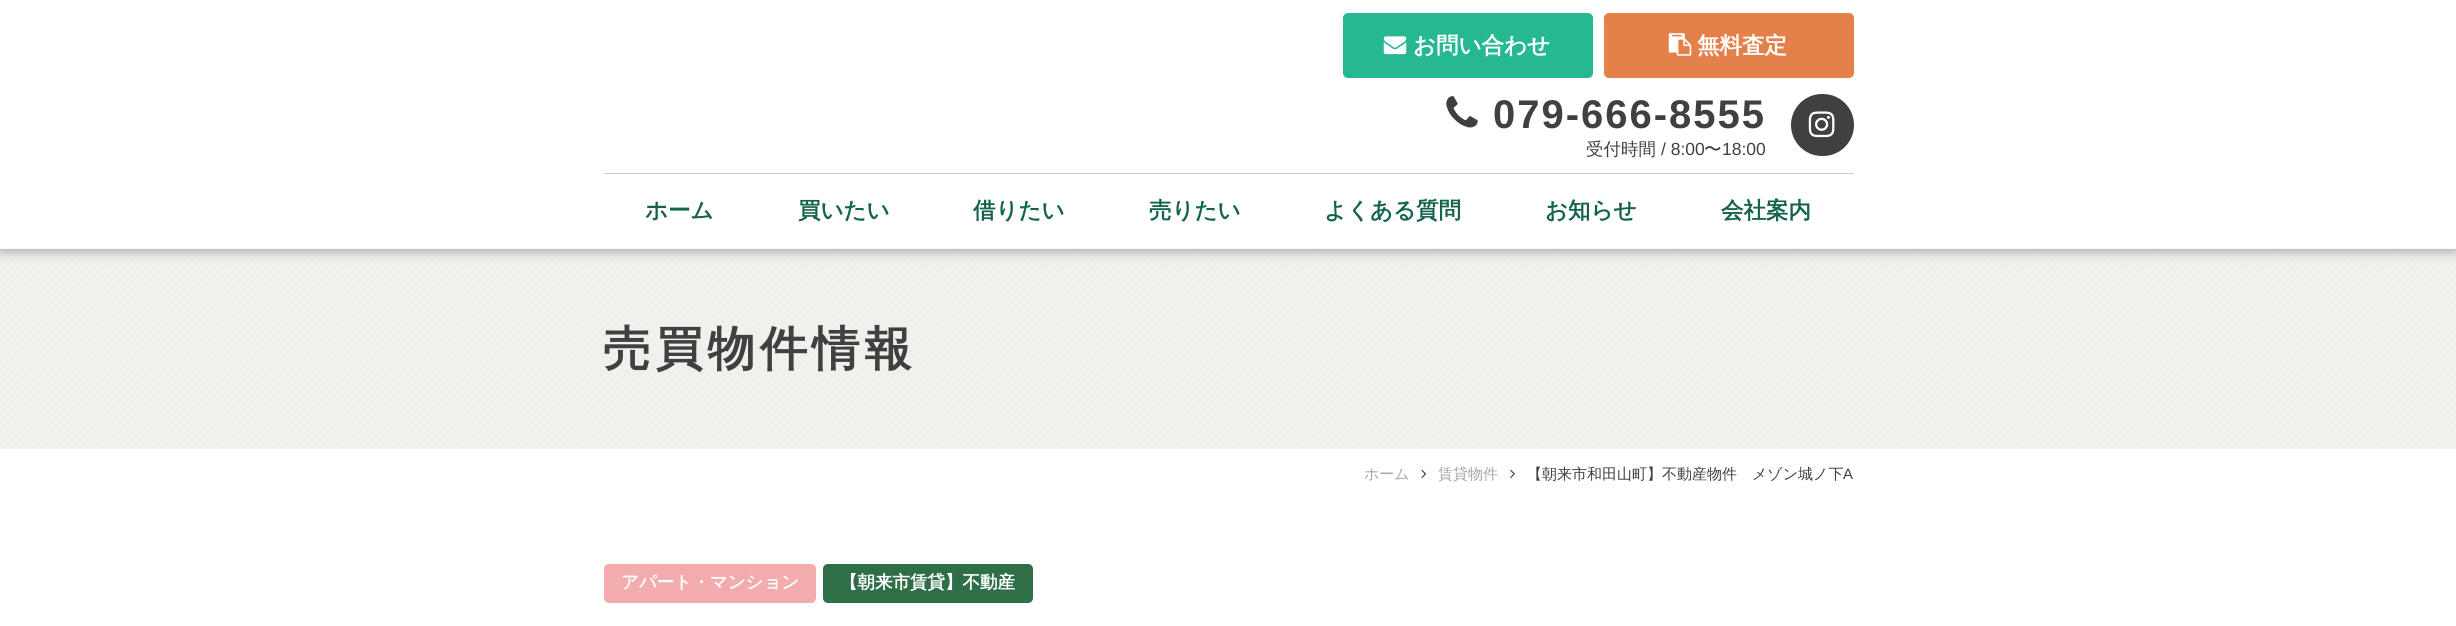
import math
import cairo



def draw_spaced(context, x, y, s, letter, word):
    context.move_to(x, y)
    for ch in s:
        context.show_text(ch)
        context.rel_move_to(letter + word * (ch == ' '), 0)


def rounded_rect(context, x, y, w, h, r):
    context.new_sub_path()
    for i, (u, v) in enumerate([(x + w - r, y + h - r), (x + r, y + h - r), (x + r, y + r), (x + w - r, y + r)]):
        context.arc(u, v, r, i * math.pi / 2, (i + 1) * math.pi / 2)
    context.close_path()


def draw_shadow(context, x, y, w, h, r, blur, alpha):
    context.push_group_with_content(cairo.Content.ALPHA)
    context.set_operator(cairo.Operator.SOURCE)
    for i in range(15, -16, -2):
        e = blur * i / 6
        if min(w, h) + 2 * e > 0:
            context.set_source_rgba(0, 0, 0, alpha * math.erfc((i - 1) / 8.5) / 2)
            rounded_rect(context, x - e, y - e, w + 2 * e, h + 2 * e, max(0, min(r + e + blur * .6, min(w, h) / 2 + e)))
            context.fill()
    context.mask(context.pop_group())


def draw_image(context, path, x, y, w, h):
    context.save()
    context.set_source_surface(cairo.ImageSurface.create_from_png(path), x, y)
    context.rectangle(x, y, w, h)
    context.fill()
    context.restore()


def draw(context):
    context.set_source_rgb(1, 1, 1)
    context.paint()
    draw_image(context, "images/5.png", 0, 248, 2456, 201)
    context.save()
    context.set_fill_rule(cairo.FillRule.EVEN_ODD)
    context.new_path()
    context.move_to(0, 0)
    context.line_to(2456, 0)
    context.line_to(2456, 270)
    context.line_to(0, 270)
    context.close_path()
    context.move_to(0, 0)
    context.line_to(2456, 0)
    context.line_to(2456, 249)
    context.line_to(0, 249)
    context.close_path()
    context.clip()
    context.set_source_rgb(51 / 255, 51 / 255, 51 / 255)
    draw_shadow(context, 0, 3, 2456, 248, 0, 6, 0.4)
    context.restore()
    context.set_source_rgb(38 / 255, 184 / 255, 145 / 255)
    rounded_rect(context, 1343, 13, 250, 65, 5)
    context.fill()
    draw_image(context, "images/1.png", 1383, 36, 24, 19)
    context.set_source_rgb(228 / 255, 129 / 255, 75 / 255)
    rounded_rect(context, 1604, 13, 250, 65, 5)
    context.fill()
    draw_image(context, "images/2.png", 1668, 33, 24, 23)
    draw_image(context, "images/3.png", 1446, 96, 32, 32)
    context.set_source_rgb(64 / 255, 64 / 255, 64 / 255)
    rounded_rect(context, 1791, 94, 63, 62, 31)
    context.fill()
    draw_image(context, "images/4.png", 1808, 111, 27, 27)
    context.set_source_rgb(202 / 255, 202 / 255, 202 / 255)
    context.rectangle(604, 173, 1250, 1)
    context.fill()
    draw_image(context, "images/6.png", 1421, 469, 6, 9)
    draw_image(context, "images/7.png", 1510, 469, 5, 10)
    context.set_source_rgb(243 / 255, 172 / 255, 174 / 255)
    rounded_rect(context, 604, 564, 212, 39, 5)
    context.fill()
    context.set_source_rgb(46 / 255, 111 / 255, 71 / 255)
    rounded_rect(context, 823, 564, 210, 39, 5)
    context.fill()
    context.select_font_face("WenQuanYi Zen Hei", cairo.FontSlant.NORMAL, cairo.FontWeight.BOLD)
    context.set_font_size(22.5)
    context.set_source_rgb(1, 1, 1)
    context.move_to(1413, 53)
    context.show_text("お問い合わせ")
    context.move_to(1697, 53)
    context.show_text("無料査定")
    context.select_font_face("Liberation Sans", cairo.FontSlant.NORMAL, cairo.FontWeight.BOLD)
    context.set_font_size(40)
    context.set_source_rgb(64 / 255, 64 / 255, 64 / 255)
    draw_spaced(context, 1493, 128, "079-666-8555", 2, 0)
    context.select_font_face("WenQuanYi Zen Hei Medium")
    context.set_font_size(17.5)
    context.move_to(1586, 155)
    context.show_text("受付時間")
    context.select_font_face("Liberation Sans")
    context.move_to(1661, 155)
    context.show_text("/ 8:00")
    context.select_font_face("WenQuanYi Zen Hei Medium")
    context.move_to(1704, 155)
    context.show_text("〜")
    context.select_font_face("Liberation Sans")
    context.move_to(1722, 155)
    context.show_text("18:00")
    context.select_font_face("WenQuanYi Zen Hei", cairo.FontSlant.NORMAL, cairo.FontWeight.BOLD)
    context.set_font_size(22.5)
    context.set_source_rgb(21 / 255, 99 / 255, 78 / 255)
    context.move_to(645, 218)
    context.show_text("ホーム")
    context.move_to(798, 218)
    context.show_text("買いたい")
    context.move_to(973, 218)
    context.show_text("借りたい")
    context.move_to(1149, 218)
    context.show_text("売りたい")
    context.move_to(1324, 218)
    context.show_text("よくある質問")
    context.move_to(1545, 218)
    context.show_text("お知らせ")
    context.move_to(1721, 218)
    context.show_text("会社案内")
    context.set_font_size(47.5)
    context.set_source_rgb(64 / 255, 64 / 255, 64 / 255)
    draw_spaced(context, 603, 365, "売買物件情報", 4.75, 0)
    context.select_font_face("WenQuanYi Zen Hei Medium")
    context.set_font_size(15)
    context.set_source_rgb(166 / 255, 166 / 255, 166 / 255)
    context.move_to(1364, 479)
    context.show_text("ホーム")
    context.move_to(1438, 479)
    context.show_text("賃貸物件")
    context.set_source_rgb(64 / 255, 64 / 255, 64 / 255)
    context.move_to(1527, 479)
    context.show_text("【朝来市和田山町】不動産物件　メゾン城ノ下")
    context.select_font_face("Liberation Sans")
    context.move_to(1843, 479)
    context.show_text("A")
    context.select_font_face("WenQuanYi Zen Hei", cairo.FontSlant.NORMAL, cairo.FontWeight.BOLD)
    context.set_font_size(17.5)
    context.set_source_rgb(1, 1, 1)
    context.move_to(621, 588)
    context.show_text("アパート・マンション")
    context.move_to(840, 588)
    context.show_text("【朝来市賃貸】不動産")


surface = cairo.ImageSurface(cairo.Format.RGB24, 2456, 626)
context = cairo.Context(surface)
options = cairo.FontOptions()
options.set_hint_metrics(cairo.HintMetrics.OFF)
options.set_hint_style(cairo.HintStyle.NONE)
context.set_font_options(options)
context.set_miter_limit(4)
draw(context)
surface.write_to_png("out.png")
